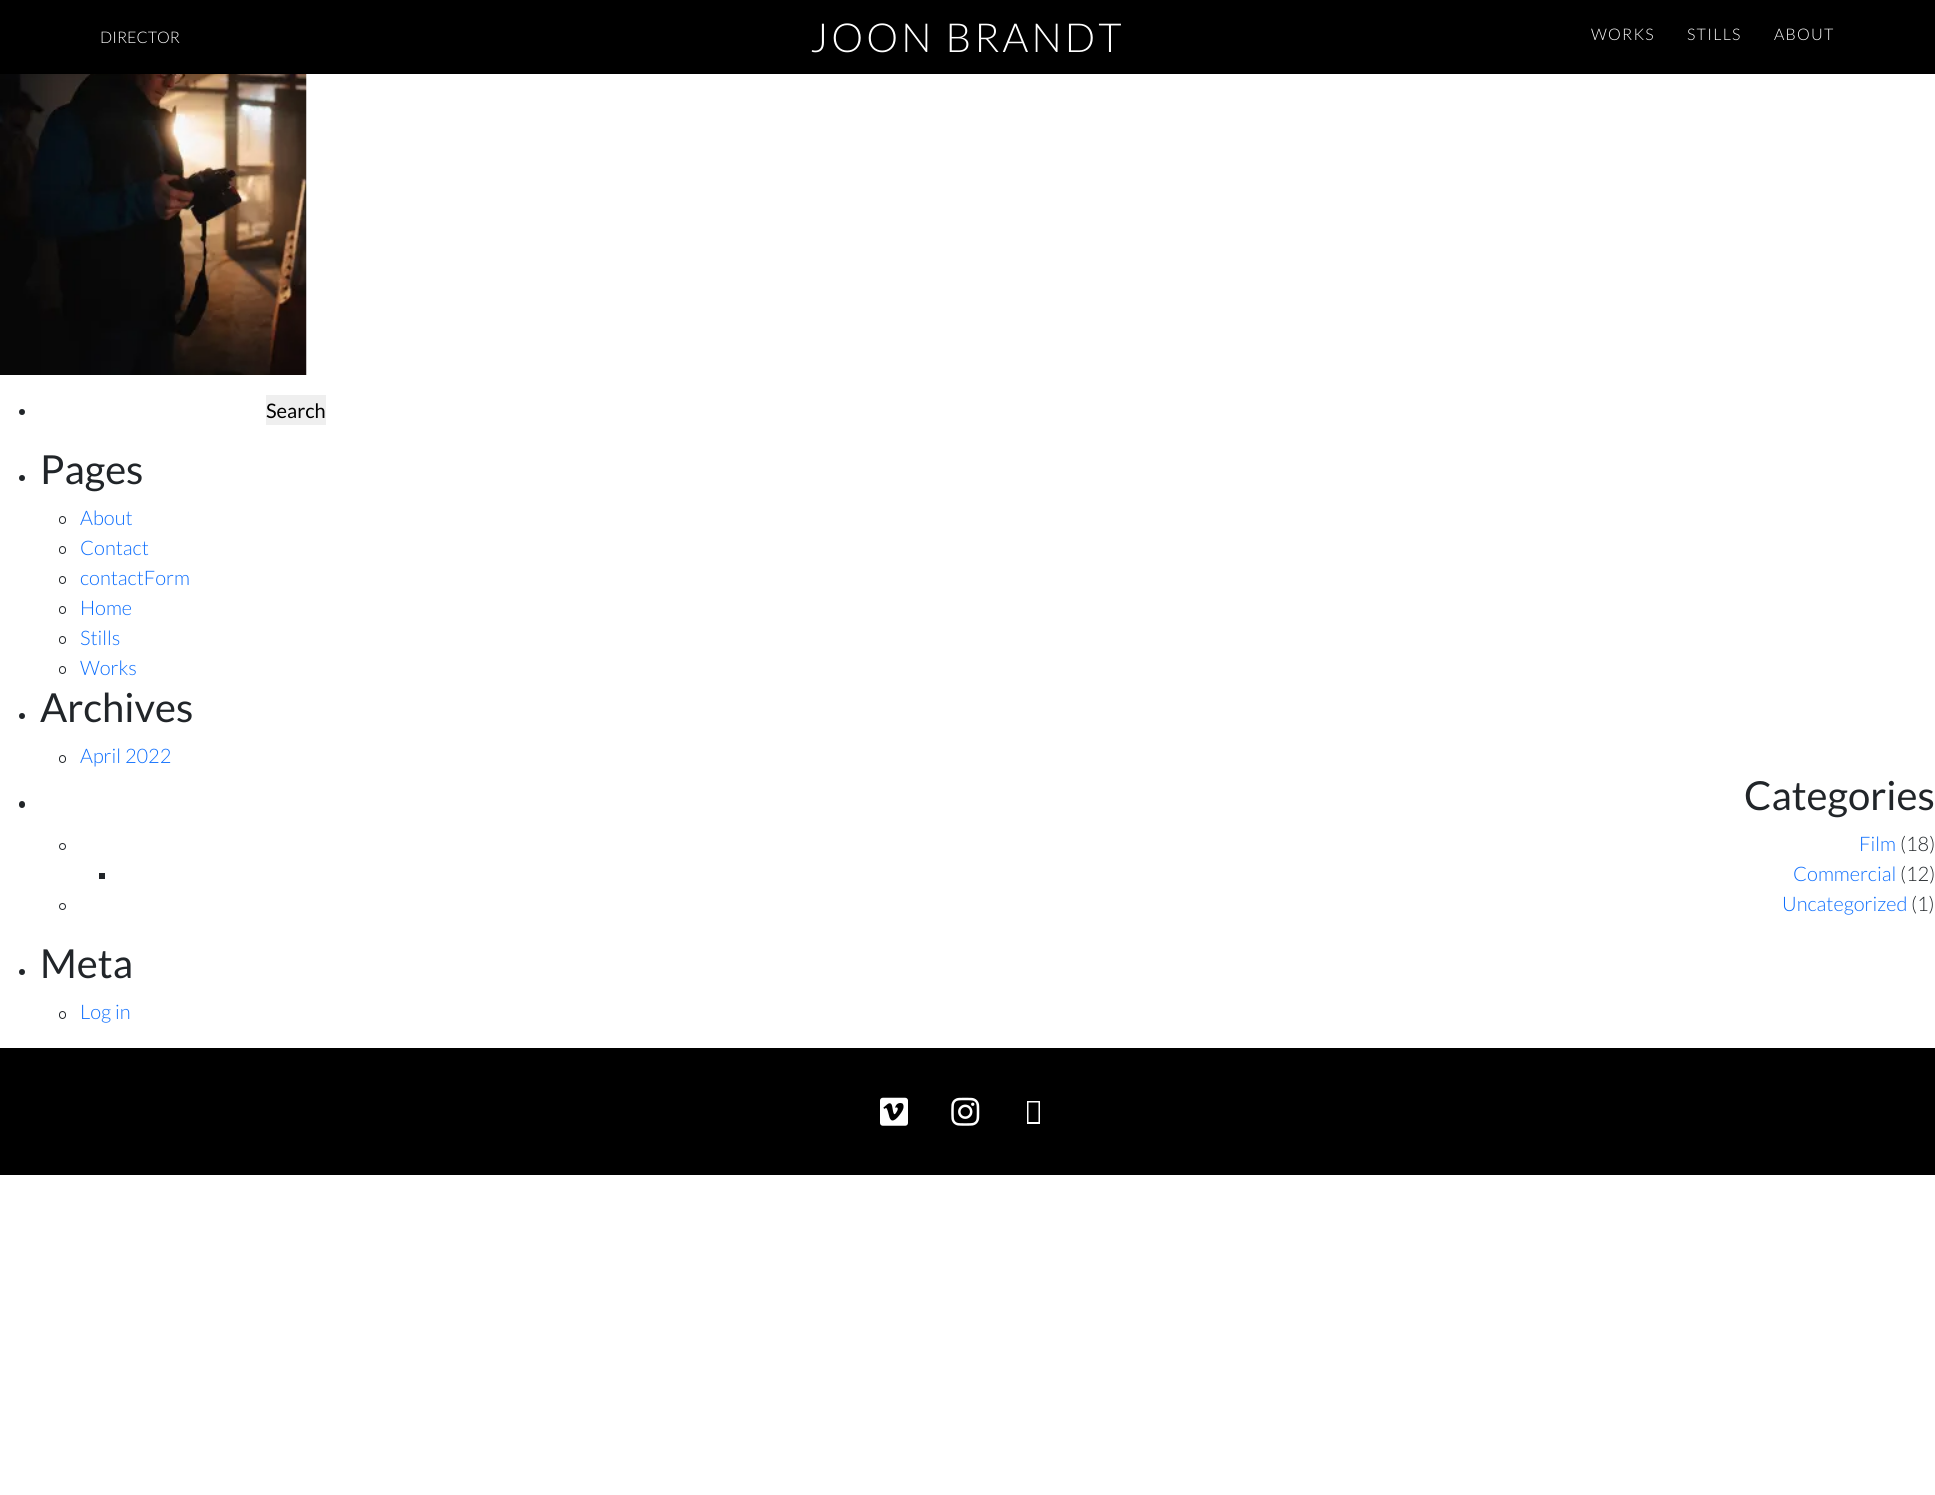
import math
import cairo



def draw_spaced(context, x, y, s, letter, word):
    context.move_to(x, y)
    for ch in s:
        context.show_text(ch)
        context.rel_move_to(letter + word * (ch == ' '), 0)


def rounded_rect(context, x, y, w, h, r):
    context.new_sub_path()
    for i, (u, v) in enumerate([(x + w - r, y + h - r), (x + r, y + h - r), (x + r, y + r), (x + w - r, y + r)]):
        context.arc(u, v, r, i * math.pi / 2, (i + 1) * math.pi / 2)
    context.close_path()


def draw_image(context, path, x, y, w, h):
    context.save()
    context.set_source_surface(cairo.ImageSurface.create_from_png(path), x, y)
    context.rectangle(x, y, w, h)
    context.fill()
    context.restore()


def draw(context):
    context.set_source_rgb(1, 1, 1)
    context.paint()
    context.set_source_rgb(0, 0, 0)
    context.rectangle(0, 0, 1935, 74)
    context.fill()
    draw_image(context, "images/1.png", 0, 74, 307, 301)
    context.set_source_rgb(33 / 255, 37 / 255, 41 / 255)
    context.arc(22, 412, 3, 0, 2 * math.pi)
    context.fill()
    context.set_source_rgb(239 / 255, 239 / 255, 239 / 255)
    context.rectangle(266, 395, 60, 30)
    context.fill()
    context.set_source_rgb(33 / 255, 37 / 255, 41 / 255)
    context.arc(22, 478, 3, 0, 2 * math.pi)
    context.fill()
    rounded_rect(context, 59.5, 516.5, 6, 7, 3)
    context.set_line_width(1)
    context.stroke()
    rounded_rect(context, 59.5, 546.5, 6, 7, 3)
    context.stroke()
    rounded_rect(context, 59.5, 576.5, 6, 7, 3)
    context.stroke()
    rounded_rect(context, 59.5, 606.5, 6, 7, 3)
    context.stroke()
    rounded_rect(context, 59.5, 636.5, 6, 7, 3)
    context.stroke()
    rounded_rect(context, 59.5, 666.5, 6, 7, 3)
    context.stroke()
    context.arc(22, 716, 3, 0, 2 * math.pi)
    context.fill()
    rounded_rect(context, 59.5, 755.5, 6, 7, 3)
    context.stroke()
    rounded_rect(context, 19, 801, 6, 7, 3)
    context.fill()
    context.arc(62.5, 846.5, 3, 0, 2 * math.pi)
    context.stroke()
    context.rectangle(99, 873, 6, 6)
    context.fill()
    context.arc(62.5, 906.5, 3, 0, 2 * math.pi)
    context.stroke()
    context.arc(22, 972, 3, 0, 2 * math.pi)
    context.fill()
    rounded_rect(context, 59.5, 1011.5, 6, 7, 3)
    context.stroke()
    context.set_source_rgb(0, 0, 0)
    context.rectangle(0, 1048, 1935, 127)
    context.fill()
    draw_image(context, "images/2.png", 880, 1097, 28, 29)
    draw_image(context, "images/3.png", 951, 1097, 29, 29)
    context.set_source_rgb(1, 1, 1)
    context.new_path()
    context.move_to(1027, 1124)
    context.line_to(1027, 1101)
    context.line_to(1040, 1101)
    context.line_to(1040, 1124)
    context.close_path()
    context.move_to(1028.5, 1122)
    context.line_to(1038.5, 1122)
    context.line_to(1038.5, 1102.5)
    context.line_to(1028.5, 1102.5)
    context.close_path()
    context.fill()
    context.select_font_face("Lato Light")
    context.set_font_size(16)
    context.move_to(100, 43)
    context.show_text("DIRECTOR")
    context.set_font_size(40)
    draw_spaced(context, 810, 52, "JOON BRANDT", 3.1, 0)
    context.set_font_size(16)
    draw_spaced(context, 1591, 40, "WORKS", 1.25, 0)
    draw_spaced(context, 1687, 40, "STILLS", 1.25, 0)
    draw_spaced(context, 1774, 40, "ABOUT", 1.25, 0)
    context.select_font_face("Lato")
    context.set_font_size(20)
    context.set_source_rgb(0, 0, 0)
    context.move_to(266, 418)
    context.show_text("Search")
    context.set_font_size(40)
    context.set_source_rgb(33 / 255, 37 / 255, 41 / 255)
    context.move_to(40, 484)
    context.show_text("Pages")
    context.select_font_face("Lato Light")
    context.set_font_size(20)
    context.set_source_rgb(13 / 255, 110 / 255, 253 / 255)
    context.move_to(80, 525)
    context.show_text("About")
    context.move_to(80, 555)
    context.show_text("Contact")
    context.move_to(80, 585)
    context.show_text("contactForm")
    context.move_to(80, 615)
    context.show_text("Home")
    context.move_to(80, 645)
    context.show_text("Stills")
    context.move_to(80, 675)
    context.show_text("Works")
    context.select_font_face("Lato")
    context.set_font_size(40)
    context.set_source_rgb(33 / 255, 37 / 255, 41 / 255)
    context.move_to(40, 722)
    context.show_text("Archives")
    context.select_font_face("Lato Light")
    context.set_font_size(20)
    context.set_source_rgb(13 / 255, 110 / 255, 253 / 255)
    context.move_to(80, 763)
    context.show_text("April 2022")
    context.select_font_face("Lato")
    context.set_font_size(40)
    context.set_source_rgb(33 / 255, 37 / 255, 41 / 255)
    context.move_to(1744, 810)
    context.show_text("Categories")
    context.select_font_face("Lato Light")
    context.set_font_size(20)
    context.set_source_rgb(13 / 255, 110 / 255, 253 / 255)
    context.move_to(1859, 851)
    context.show_text("Film")
    context.set_source_rgb(33 / 255, 37 / 255, 41 / 255)
    context.move_to(1900, 851)
    context.show_text("(18)")
    context.set_source_rgb(13 / 255, 110 / 255, 253 / 255)
    context.move_to(1793, 881)
    context.show_text("Commercial")
    context.set_source_rgb(33 / 255, 37 / 255, 41 / 255)
    context.move_to(1900, 881)
    context.show_text("(12)")
    context.set_source_rgb(13 / 255, 110 / 255, 253 / 255)
    context.move_to(1782, 911)
    context.show_text("Uncategorized")
    context.set_source_rgb(33 / 255, 37 / 255, 41 / 255)
    context.move_to(1911, 911)
    context.show_text("(1)")
    context.select_font_face("Lato")
    context.set_font_size(40)
    context.move_to(40, 978)
    context.show_text("Meta")
    context.select_font_face("Lato Light")
    context.set_font_size(20)
    context.set_source_rgb(13 / 255, 110 / 255, 253 / 255)
    context.move_to(80, 1019)
    context.show_text("Log in")


surface = cairo.ImageSurface(cairo.Format.RGB24, 1935, 1495)
context = cairo.Context(surface)
options = cairo.FontOptions()
options.set_hint_metrics(cairo.HintMetrics.OFF)
options.set_hint_style(cairo.HintStyle.NONE)
context.set_font_options(options)
context.set_miter_limit(4)
draw(context)
surface.write_to_png("out.png")
